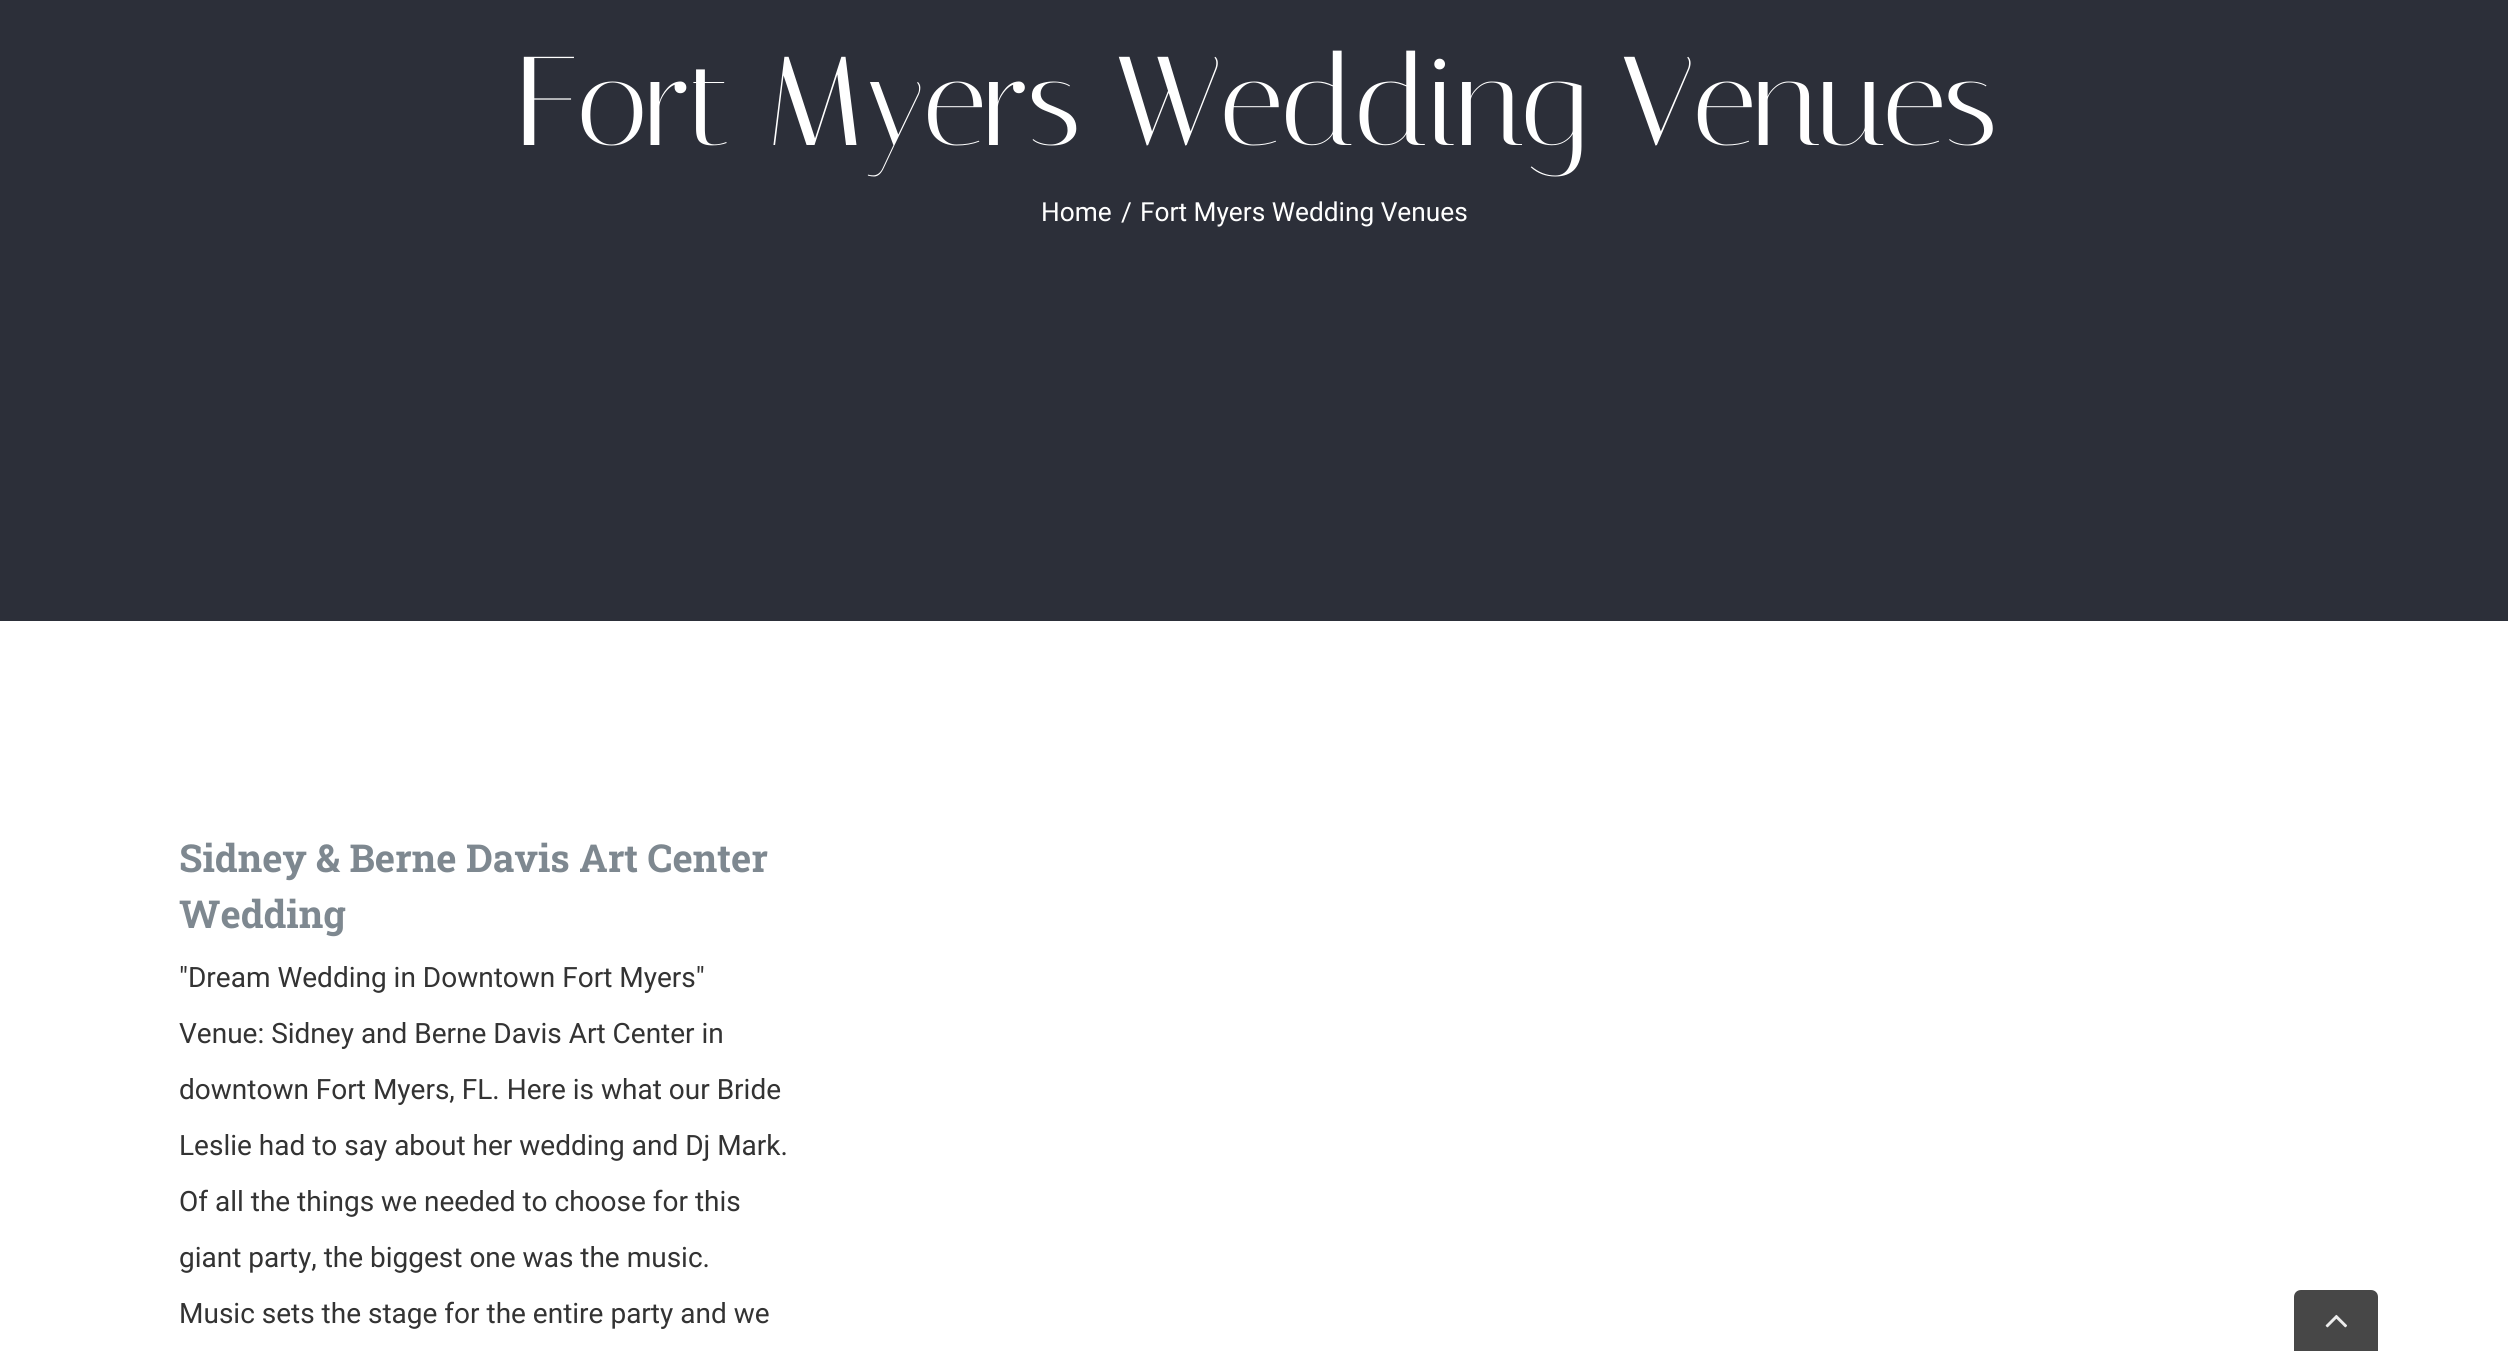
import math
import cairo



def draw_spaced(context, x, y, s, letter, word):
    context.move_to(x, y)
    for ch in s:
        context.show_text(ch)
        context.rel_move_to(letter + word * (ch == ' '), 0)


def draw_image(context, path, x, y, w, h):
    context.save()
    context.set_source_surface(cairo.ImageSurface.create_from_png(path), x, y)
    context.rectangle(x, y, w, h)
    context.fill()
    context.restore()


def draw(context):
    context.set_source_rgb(1, 1, 1)
    context.paint()
    context.set_source_rgb(44 / 255, 47 / 255, 57 / 255)
    context.rectangle(0, 0, 2508, 621)
    context.fill()
    context.set_source_rgb(71 / 255, 71 / 255, 71 / 255)
    context.new_path()
    context.move_to(2301, 1290)
    context.line_to(2371, 1290)
    context.curve_to(2375, 1290, 2378, 1293, 2378, 1297)
    context.line_to(2378, 1351)
    context.line_to(2294, 1351)
    context.line_to(2294, 1297)
    context.curve_to(2294, 1293, 2297, 1290, 2301, 1290)
    context.close_path()
    context.fill()
    draw_image(context, "images/1.png", 2325, 1314, 22, 14)
    context.select_font_face("Italiana")
    context.set_font_size(126)
    context.set_source_rgb(1, 1, 1)
    draw_spaced(context, 515, 145, "Fort Myers Wedding Venues", -1.75, 0)
    context.select_font_face("Roboto")
    context.set_font_size(26.25)
    context.move_to(1041, 221)
    context.show_text("Home")
    context.move_to(1121, 221)
    context.show_text("/")
    context.move_to(1140, 221)
    context.show_text("Fort Myers Wedding Venues")
    context.select_font_face("Roboto Slab", cairo.FontSlant.NORMAL, cairo.FontWeight.BOLD)
    context.set_font_size(38.5)
    context.set_source_rgb(126 / 255, 136 / 255, 144 / 255)
    context.move_to(179, 872)
    context.show_text("Sidney & Berne Davis Art Center")
    context.move_to(179, 928)
    context.show_text("Wedding")
    context.select_font_face("Roboto")
    context.set_font_size(28)
    context.set_source_rgb(51 / 255, 51 / 255, 51 / 255)
    context.move_to(179, 987)
    context.show_text("\"Dream Wedding in Downtown Fort Myers\"")
    context.move_to(179, 1043)
    context.show_text("Venue: Sidney and Berne Davis Art Center in")
    context.move_to(179, 1099)
    context.show_text("downtown Fort Myers, FL. Here is what our Bride")
    context.move_to(179, 1155)
    context.show_text("Leslie had to say about her wedding and Dj Mark.")
    context.move_to(179, 1211)
    context.show_text("Of all the things we needed to choose for this")
    context.move_to(179, 1267)
    context.show_text("giant party, the biggest one was the music.")
    context.move_to(179, 1323)
    context.show_text("Music sets the stage for the entire party and we")


surface = cairo.ImageSurface(cairo.Format.RGB24, 2508, 1351)
context = cairo.Context(surface)
options = cairo.FontOptions()
options.set_hint_metrics(cairo.HintMetrics.OFF)
options.set_hint_style(cairo.HintStyle.NONE)
context.set_font_options(options)
context.set_miter_limit(4)
draw(context)
surface.write_to_png("out.png")
